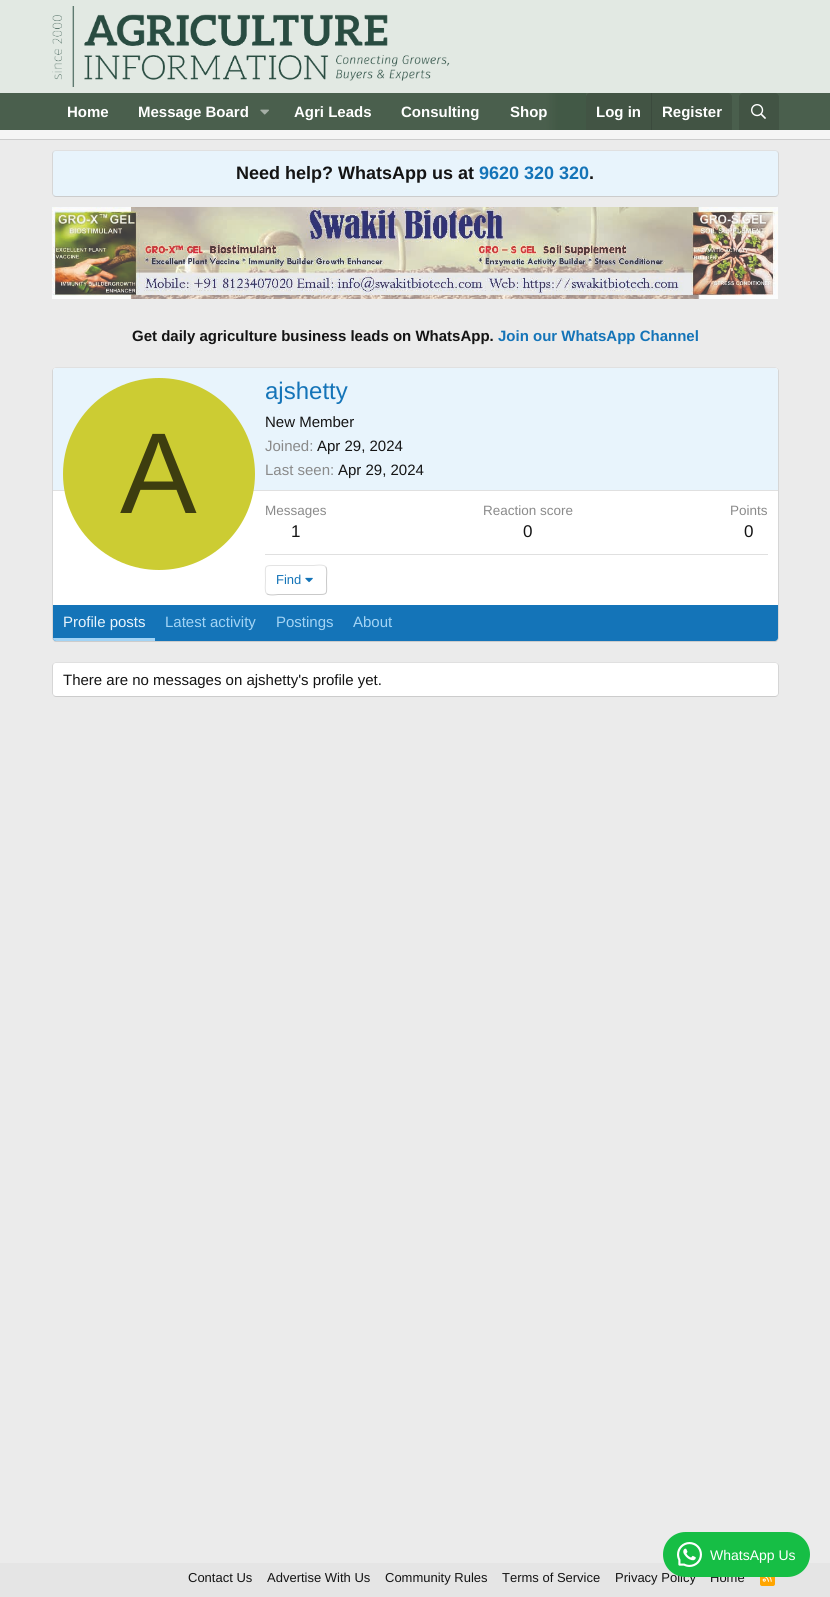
import math
import cairo



def rounded_rect(context, x, y, w, h, r):
    context.new_sub_path()
    for i, (u, v) in enumerate([(x + w - r, y + h - r), (x + r, y + h - r), (x + r, y + r), (x + w - r, y + r)]):
        context.arc(u, v, r, i * math.pi / 2, (i + 1) * math.pi / 2)
    context.close_path()


def draw_image(context, path, x, y, w, h):
    context.save()
    context.set_source_surface(cairo.ImageSurface.create_from_png(path), x, y)
    context.rectangle(x, y, w, h)
    context.fill()
    context.restore()


def draw(context):
    context.set_source_rgb(235 / 255, 235 / 255, 235 / 255)
    context.paint()
    context.set_source_rgb(226 / 255, 233 / 255, 227 / 255)
    context.rectangle(0, 0, 830, 93)
    context.fill()
    draw_image(context, "images/1.png", 52, 6, 398, 81)
    context.set_source_rgb(74 / 255, 95 / 255, 77 / 255)
    context.rectangle(0, 93, 830, 37)
    context.fill()
    draw_image(context, "images/2.png", 260, 109, 9, 6)
    context.set_source_rgb(66 / 255, 84 / 255, 68 / 255)
    context.new_path()
    context.move_to(590, 93)
    context.line_to(728, 93)
    context.curve_to(730, 93, 732, 95, 732, 97)
    context.line_to(732, 130)
    context.line_to(586, 130)
    context.line_to(586, 97)
    context.curve_to(586, 95, 588, 93, 590, 93)
    context.close_path()
    context.fill()
    context.set_source_rgb(59 / 255, 74 / 255, 61 / 255)
    context.rectangle(651, 93, 1, 37)
    context.fill()
    context.set_source_rgb(66 / 255, 84 / 255, 68 / 255)
    context.new_path()
    context.move_to(743, 93)
    context.line_to(775, 93)
    context.curve_to(777, 93, 779, 95, 779, 97)
    context.line_to(779, 130)
    context.line_to(739, 130)
    context.line_to(739, 97)
    context.curve_to(739, 95, 741, 93, 743, 93)
    context.close_path()
    context.fill()
    draw_image(context, "images/3.png", 751, 104, 15, 15)
    context.set_source_rgb(245 / 255, 245 / 255, 245 / 255)
    context.rectangle(0, 130, 830, 9)
    context.fill()
    context.set_source_rgb(204 / 255, 204 / 255, 204 / 255)
    context.rectangle(0, 139, 830, 1)
    context.fill()
    context.set_source_rgb(232 / 255, 244 / 255, 252 / 255)
    rounded_rect(context, 52, 150, 727, 47, 4)
    context.fill()
    context.new_path()
    context.move_to(53.5, 151.5)
    context.curve_to(54, 151, 55, 150.5, 56, 150.5)
    context.line_to(775, 150.5)
    context.curve_to(776, 150.5, 777, 151, 777.5, 151.5)
    context.set_source_rgb(224 / 255, 224 / 255, 224 / 255)
    context.set_line_width(1)
    context.stroke()
    context.new_path()
    context.move_to(777.5, 151.5)
    context.curve_to(778, 152, 778.5, 153, 778.5, 154)
    context.line_to(778.5, 193)
    context.curve_to(778.5, 194, 778, 195, 777.5, 195.5)
    context.set_source_rgb(214 / 255, 214 / 255, 214 / 255)
    context.stroke()
    context.new_path()
    context.move_to(777.5, 195.5)
    context.curve_to(777, 196, 776, 196.5, 775, 196.5)
    context.line_to(56, 196.5)
    context.curve_to(55, 196.5, 54, 196, 53.5, 195.5)
    context.set_source_rgb(204 / 255, 204 / 255, 204 / 255)
    context.stroke()
    context.new_path()
    context.move_to(53.5, 195.5)
    context.curve_to(53, 195, 52.5, 194, 52.5, 193)
    context.line_to(52.5, 154)
    context.curve_to(52.5, 153, 53, 152, 53.5, 151.5)
    context.set_source_rgb(214 / 255, 214 / 255, 214 / 255)
    context.stroke()
    draw_image(context, "images/4.png", 52, 207, 726, 92)
    context.set_source_rgb(1, 1, 1)
    rounded_rect(context, 52, 367, 727, 275, 4)
    context.fill()
    context.new_path()
    context.move_to(53.5, 368.5)
    context.curve_to(54, 368, 55, 367.5, 56, 367.5)
    context.line_to(775, 367.5)
    context.curve_to(776, 367.5, 777, 368, 777.5, 368.5)
    context.set_source_rgb(224 / 255, 224 / 255, 224 / 255)
    context.stroke()
    context.new_path()
    context.move_to(777.5, 368.5)
    context.curve_to(778, 369, 778.5, 370, 778.5, 371)
    context.line_to(778.5, 638)
    context.curve_to(778.5, 639, 778, 640, 777.5, 640.5)
    context.set_source_rgb(214 / 255, 214 / 255, 214 / 255)
    context.stroke()
    context.new_path()
    context.move_to(777.5, 640.5)
    context.curve_to(777, 641, 776, 641.5, 775, 641.5)
    context.line_to(56, 641.5)
    context.curve_to(55, 641.5, 54, 641, 53.5, 640.5)
    context.set_source_rgb(204 / 255, 204 / 255, 204 / 255)
    context.stroke()
    context.new_path()
    context.move_to(53.5, 640.5)
    context.curve_to(53, 640, 52.5, 639, 52.5, 638)
    context.line_to(52.5, 371)
    context.curve_to(52.5, 370, 53, 369, 53.5, 368.5)
    context.set_source_rgb(214 / 255, 214 / 255, 214 / 255)
    context.stroke()
    context.set_source_rgb(232 / 255, 244 / 255, 252 / 255)
    context.new_path()
    context.move_to(56, 368)
    context.line_to(775, 368)
    context.curve_to(776.5, 368, 778, 369.5, 778, 371)
    context.line_to(778, 491)
    context.line_to(53, 491)
    context.line_to(53, 371)
    context.curve_to(53, 369.5, 54.5, 368, 56, 368)
    context.close_path()
    context.fill()
    context.set_source_rgb(224 / 255, 224 / 255, 224 / 255)
    context.rectangle(53, 490, 725, 1)
    context.fill()
    context.set_source_rgb(204 / 255, 204 / 255, 51 / 255)
    context.arc(159, 474, 96, 0, 2 * math.pi)
    context.fill()
    context.set_source_rgb(224 / 255, 224 / 255, 224 / 255)
    context.rectangle(265, 554, 503, 1)
    context.fill()
    context.new_path()
    context.move_to(325.5, 566.5)
    context.curve_to(327.5, 568.5, 326.5, 577, 326.5, 580)
    context.curve_to(326.5, 595.5, 329, 594.5, 314, 594.5)
    context.line_to(278, 594.5)
    context.curve_to(277.5, 594.5, 269, 596, 266.5, 593.5)
    context.set_source_rgb(201 / 255, 201 / 255, 201 / 255)
    context.stroke()
    context.new_path()
    context.move_to(266.5, 593.5)
    context.curve_to(264.5, 591.5, 265.5, 583, 265.5, 580)
    context.curve_to(265.5, 564.5, 263, 565.5, 278, 565.5)
    context.line_to(314, 565.5)
    context.curve_to(314.5, 565.5, 323, 564, 325.5, 566.5)
    context.set_source_rgb(227 / 255, 227 / 255, 227 / 255)
    context.stroke()
    draw_image(context, "images/5.png", 305, 577, 8, 6)
    context.set_source_rgb(20 / 255, 116 / 255, 184 / 255)
    context.new_path()
    context.move_to(53, 605)
    context.line_to(778, 605)
    context.line_to(778, 638)
    context.curve_to(778, 639.5, 776.5, 641, 775, 641)
    context.line_to(56, 641)
    context.curve_to(54.5, 641, 53, 639.5, 53, 638)
    context.close_path()
    context.fill()
    context.set_source_rgb(163 / 255, 212 / 255, 245 / 255)
    context.new_path()
    context.move_to(53, 638)
    context.line_to(155, 638)
    context.line_to(155, 641)
    context.line_to(56, 641)
    context.curve_to(54.5, 641, 53, 639.5, 53, 638)
    context.close_path()
    context.fill()
    context.set_source_rgb(1, 1, 1)
    rounded_rect(context, 52, 662, 727, 35, 4)
    context.fill()
    context.new_path()
    context.move_to(53.5, 663.5)
    context.curve_to(54, 663, 55, 662.5, 56, 662.5)
    context.line_to(775, 662.5)
    context.curve_to(776, 662.5, 777, 663, 777.5, 663.5)
    context.set_source_rgb(224 / 255, 224 / 255, 224 / 255)
    context.stroke()
    context.new_path()
    context.move_to(777.5, 663.5)
    context.curve_to(778, 664, 778.5, 665, 778.5, 666)
    context.line_to(778.5, 693)
    context.curve_to(778.5, 694, 778, 695, 777.5, 695.5)
    context.set_source_rgb(214 / 255, 214 / 255, 214 / 255)
    context.stroke()
    context.new_path()
    context.move_to(777.5, 695.5)
    context.curve_to(777, 696, 776, 696.5, 775, 696.5)
    context.line_to(56, 696.5)
    context.curve_to(55, 696.5, 54, 696, 53.5, 695.5)
    context.set_source_rgb(204 / 255, 204 / 255, 204 / 255)
    context.stroke()
    context.new_path()
    context.move_to(53.5, 695.5)
    context.curve_to(53, 695, 52.5, 694, 52.5, 693)
    context.line_to(52.5, 666)
    context.curve_to(52.5, 665, 53, 664, 53.5, 663.5)
    context.set_source_rgb(214 / 255, 214 / 255, 214 / 255)
    context.stroke()
    context.set_source_rgb(229 / 255, 229 / 255, 229 / 255)
    context.rectangle(0, 1563, 830, 34)
    context.fill()
    context.set_source_rgb(1, 165 / 255, 0)
    rounded_rect(context, 760, 1571, 15, 15, 2)
    context.fill()
    draw_image(context, "images/6.png", 762, 1577, 10, 5)
    context.select_font_face("Liberation Sans", cairo.FontSlant.NORMAL, cairo.FontWeight.BOLD)
    context.set_font_size(15)
    context.set_source_rgb(1, 1, 1)
    context.move_to(67, 117)
    context.show_text("Home")
    context.move_to(138, 117)
    context.show_text("Message Board")
    context.move_to(294, 117)
    context.show_text("Agri Leads")
    context.move_to(401, 117)
    context.show_text("Consulting")
    context.move_to(510, 117)
    context.show_text("Shop")
    gradient = cairo.LinearGradient(546, 112, 586, 112)
    gradient.add_color_stop_rgba(0, 65 / 255, 88 / 255, 69 / 255, 0)
    gradient.add_color_stop_rgba(0.33, 65 / 255, 88 / 255, 69 / 255, 0.95)
    context.set_source(gradient)
    context.rectangle(546, 93, 40, 37)
    context.fill()
    context.set_source_rgb(1, 1, 1)
    context.move_to(596, 117)
    context.show_text("Log in")
    context.move_to(662, 117)
    context.show_text("Register")
    context.set_font_size(18)
    context.set_source_rgb(20 / 255, 20 / 255, 20 / 255)
    context.move_to(236, 179)
    context.show_text("Need help? WhatsApp us at")
    context.set_source_rgb(20 / 255, 116 / 255, 184 / 255)
    context.move_to(479, 179)
    context.show_text("9620 320 320")
    context.set_source_rgb(20 / 255, 20 / 255, 20 / 255)
    context.move_to(589, 179)
    context.show_text(".")
    context.set_font_size(15)
    context.move_to(132, 341)
    context.show_text("Get daily agriculture business leads on WhatsApp.")
    context.set_source_rgb(20 / 255, 116 / 255, 184 / 255)
    context.move_to(498, 341)
    context.show_text("Join our WhatsApp Channel")
    context.select_font_face("Liberation Sans")
    context.set_font_size(115)
    context.set_source_rgb(61 / 255, 61 / 255, 15 / 255)
    context.move_to(120, 513)
    context.show_text("A")
    context.set_font_size(24)
    context.set_source_rgb(20 / 255, 116 / 255, 184 / 255)
    context.move_to(265, 399)
    context.show_text("ajshetty")
    context.set_font_size(15)
    context.set_source_rgb(20 / 255, 20 / 255, 20 / 255)
    context.move_to(265, 427)
    context.show_text("New Member")
    context.set_source_rgb(138 / 255, 138 / 255, 138 / 255)
    context.move_to(265, 451)
    context.show_text("Joined:")
    context.set_source_rgb(20 / 255, 20 / 255, 20 / 255)
    context.move_to(317, 451)
    context.show_text("Apr 29, 2024")
    context.set_source_rgb(138 / 255, 138 / 255, 138 / 255)
    context.move_to(265, 475)
    context.show_text("Last seen:")
    context.set_source_rgb(20 / 255, 20 / 255, 20 / 255)
    context.move_to(338, 475)
    context.show_text("Apr 29, 2024")
    context.set_font_size(13.5)
    context.set_source_rgb(138 / 255, 138 / 255, 138 / 255)
    context.move_to(265, 515)
    context.show_text("Messages")
    context.set_font_size(17)
    context.set_source_rgb(20 / 255, 20 / 255, 20 / 255)
    context.move_to(291, 537)
    context.show_text("1")
    context.set_font_size(13.5)
    context.set_source_rgb(138 / 255, 138 / 255, 138 / 255)
    context.move_to(483, 515)
    context.show_text("Reaction score")
    context.set_font_size(17)
    context.set_source_rgb(20 / 255, 20 / 255, 20 / 255)
    context.move_to(523, 537)
    context.show_text("0")
    context.set_font_size(13.5)
    context.set_source_rgb(138 / 255, 138 / 255, 138 / 255)
    context.move_to(730, 515)
    context.show_text("Points")
    context.set_font_size(17)
    context.set_source_rgb(20 / 255, 20 / 255, 20 / 255)
    context.move_to(744, 537)
    context.show_text("0")
    context.set_font_size(13)
    context.set_source_rgb(20 / 255, 116 / 255, 184 / 255)
    context.move_to(276, 584)
    context.show_text("Find")
    context.set_font_size(15)
    context.set_source_rgb(232 / 255, 244 / 255, 252 / 255)
    context.move_to(63, 627)
    context.show_text("Profile posts")
    context.set_source_rgb(163 / 255, 212 / 255, 245 / 255)
    context.move_to(165, 627)
    context.show_text("Latest activity")
    context.move_to(276, 627)
    context.show_text("Postings")
    context.move_to(353, 627)
    context.show_text("About")
    context.set_source_rgb(20 / 255, 20 / 255, 20 / 255)
    context.move_to(63, 685)
    context.show_text("There are no messages on ajshetty's profile yet.")
    context.set_font_size(13)
    context.move_to(188, 1582)
    context.show_text("Contact Us")
    context.move_to(267, 1582)
    context.show_text("Advertise With Us")
    context.move_to(385, 1582)
    context.show_text("Community Rules")
    context.move_to(502, 1582)
    context.show_text("Terms of Service")
    context.move_to(615, 1582)
    context.show_text("Privacy Policy")
    context.move_to(710, 1582)
    context.show_text("Home")
    context.set_source_rgb(22 / 255, 190 / 255, 69 / 255)
    rounded_rect(context, 663, 1532, 147, 45, 22.5)
    context.fill()
    draw_image(context, "images/7.png", 677, 1542, 25, 25)
    context.set_font_size(14)
    context.set_source_rgb(1, 1, 1)
    context.move_to(710, 1560)
    context.show_text("WhatsApp Us")


surface = cairo.ImageSurface(cairo.Format.RGB24, 830, 1597)
context = cairo.Context(surface)
options = cairo.FontOptions()
options.set_hint_metrics(cairo.HintMetrics.OFF)
options.set_hint_style(cairo.HintStyle.NONE)
context.set_font_options(options)
context.set_miter_limit(4)
draw(context)
surface.write_to_png("out.png")
